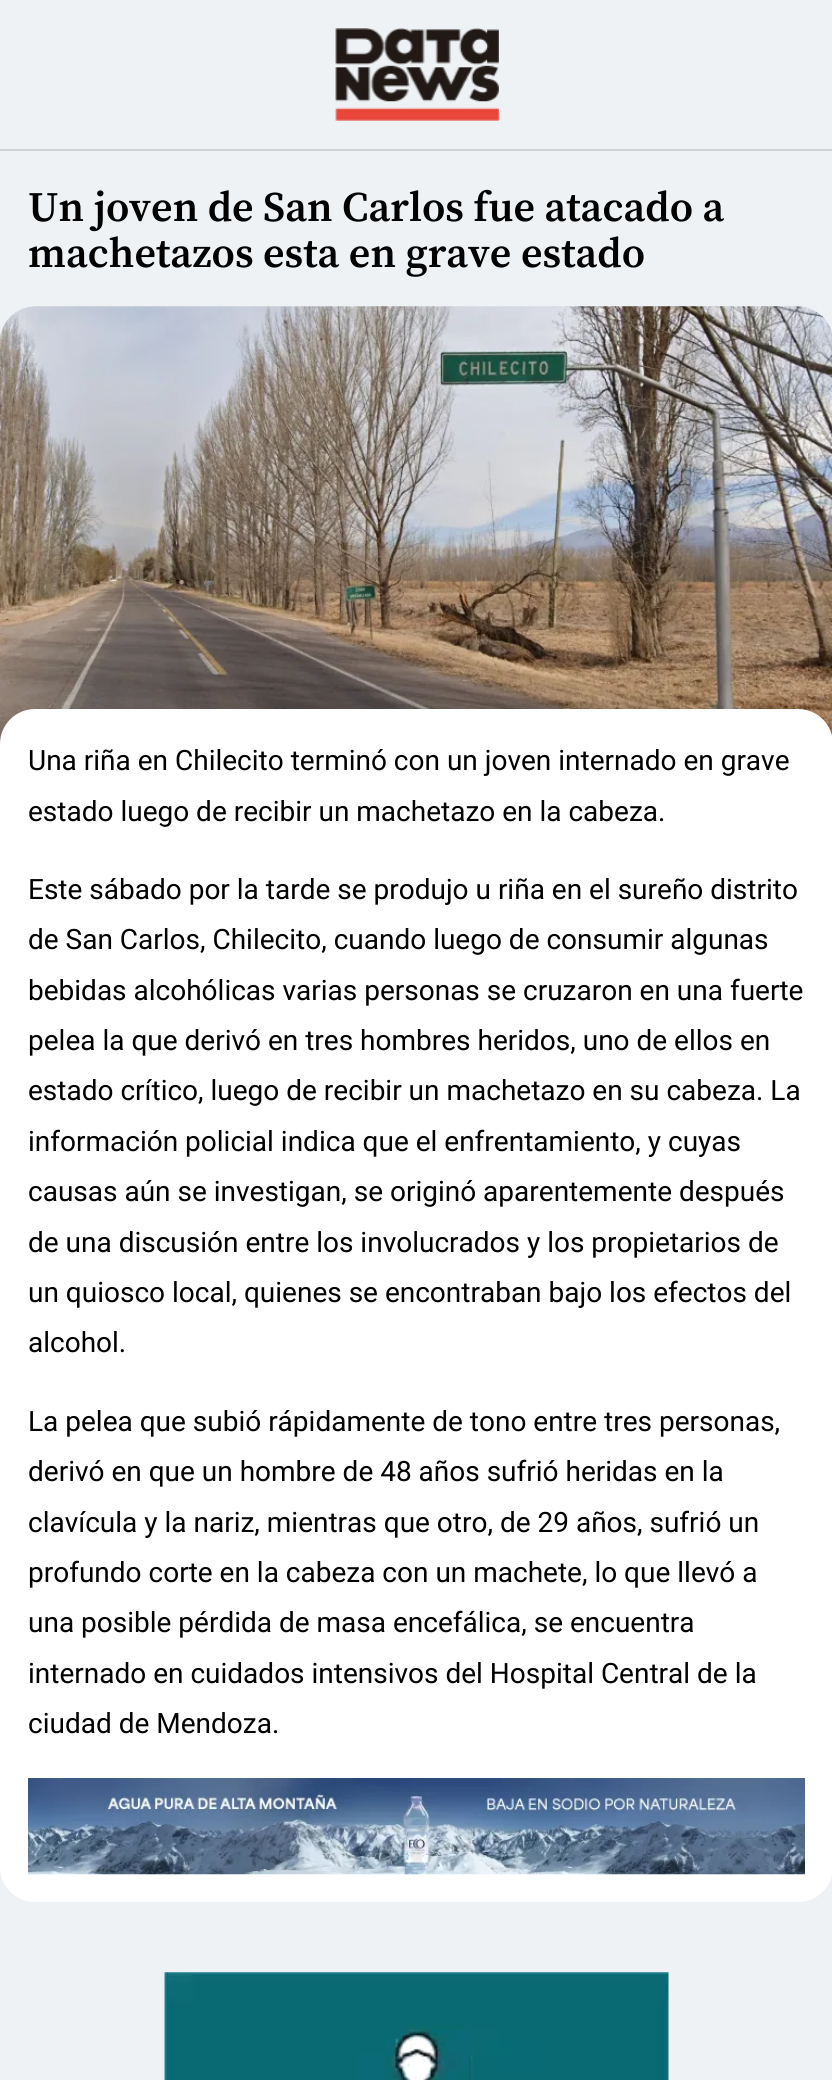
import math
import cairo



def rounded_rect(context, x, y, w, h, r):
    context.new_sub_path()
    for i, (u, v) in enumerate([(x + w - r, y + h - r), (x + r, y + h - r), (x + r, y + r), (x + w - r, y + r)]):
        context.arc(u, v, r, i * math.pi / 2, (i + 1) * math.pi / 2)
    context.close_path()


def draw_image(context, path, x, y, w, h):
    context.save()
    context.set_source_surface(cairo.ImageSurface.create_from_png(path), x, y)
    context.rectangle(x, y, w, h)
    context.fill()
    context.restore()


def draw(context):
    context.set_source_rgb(238 / 255, 242 / 255, 245 / 255)
    context.paint()
    context.set_source_rgb(210 / 255, 210 / 255, 210 / 255)
    context.rectangle(0, 149, 832, 2)
    context.fill()
    draw_image(context, "images/1.png", 335, 28, 164, 93)
    draw_image(context, "images/2.png", 0, 306, 832, 438)
    context.set_source_rgb(1, 1, 1)
    rounded_rect(context, 0, 709, 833, 1193, 35)
    context.fill()
    draw_image(context, "images/3.png", 28, 1778, 777, 97)
    draw_image(context, "images/4.png", 164, 1972, 505, 108)
    context.select_font_face("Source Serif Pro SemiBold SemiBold")
    context.set_font_size(42)
    context.set_source_rgb(0, 0, 0)
    context.move_to(28, 221)
    context.show_text("Un joven de San Carlos fue atacado a")
    context.move_to(28, 267)
    context.show_text("machetazos esta en grave estado")
    context.select_font_face("Roboto")
    context.set_font_size(28)
    context.move_to(28, 770)
    context.show_text("Una riña en Chilecito terminó con un joven internado en grave")
    context.move_to(28, 821)
    context.show_text("estado luego de recibir un machetazo en la cabeza.")
    context.move_to(28, 899)
    context.show_text("Este sábado por la tarde se produjo u riña en el sureño distrito")
    context.move_to(28, 949)
    context.show_text("de San Carlos, Chilecito, cuando luego de consumir algunas")
    context.move_to(28, 1000)
    context.show_text("bebidas alcohólicas varias personas se cruzaron en una fuerte")
    context.move_to(28, 1050)
    context.show_text("pelea la que derivó en tres hombres heridos, uno de ellos en")
    context.move_to(28, 1100)
    context.show_text("estado crítico, luego de recibir un machetazo en su cabeza. La")
    context.move_to(28, 1151)
    context.show_text("información policial indica que el enfrentamiento, y cuyas")
    context.move_to(28, 1201)
    context.show_text("causas aún se investigan, se originó aparentemente después")
    context.move_to(28, 1252)
    context.show_text("de una discusión entre los involucrados y los propietarios de")
    context.move_to(28, 1302)
    context.show_text("un quiosco local, quienes se encontraban bajo los efectos del")
    context.move_to(28, 1352)
    context.show_text("alcohol.")
    context.move_to(28, 1431)
    context.show_text("La pelea que subió rápidamente de tono entre tres personas,")
    context.move_to(28, 1481)
    context.show_text("derivó en que un hombre de 48 años sufrió heridas en la")
    context.move_to(28, 1532)
    context.show_text("clavícula y la nariz, mientras que otro, de 29 años, sufrió un")
    context.move_to(28, 1582)
    context.show_text("profundo corte en la cabeza con un machete, lo que llevó a")
    context.move_to(28, 1632)
    context.show_text("una posible pérdida de masa encefálica, se encuentra")
    context.move_to(28, 1683)
    context.show_text("internado en cuidados intensivos del Hospital Central de la")
    context.move_to(28, 1733)
    context.show_text("ciudad de Mendoza.")


surface = cairo.ImageSurface(cairo.Format.RGB24, 832, 2080)
context = cairo.Context(surface)
options = cairo.FontOptions()
options.set_hint_metrics(cairo.HintMetrics.OFF)
options.set_hint_style(cairo.HintStyle.NONE)
context.set_font_options(options)
context.set_miter_limit(4)
draw(context)
surface.write_to_png("out.png")
